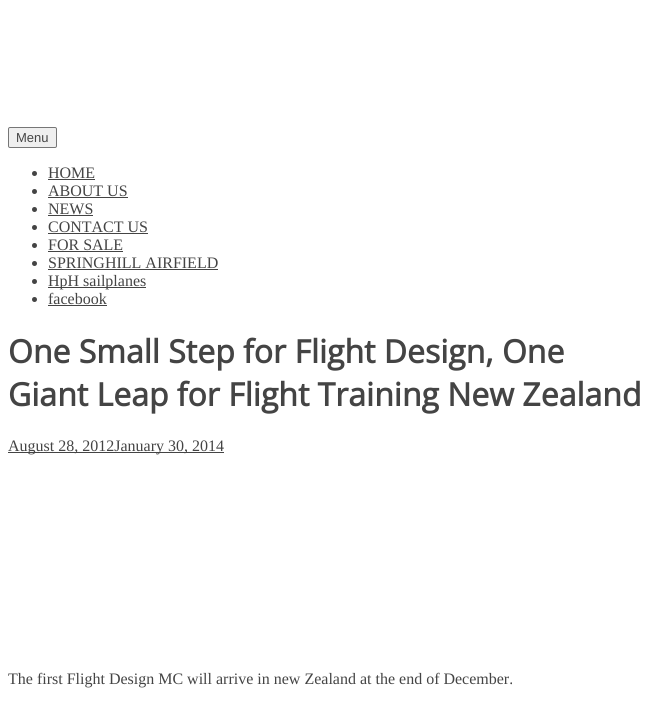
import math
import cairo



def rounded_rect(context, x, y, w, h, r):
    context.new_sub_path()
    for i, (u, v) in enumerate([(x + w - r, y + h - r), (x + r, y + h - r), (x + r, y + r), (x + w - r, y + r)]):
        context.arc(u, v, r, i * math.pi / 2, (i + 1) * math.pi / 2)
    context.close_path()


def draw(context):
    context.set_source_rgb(1, 1, 1)
    context.paint()
    context.set_source_rgb(239 / 255, 239 / 255, 239 / 255)
    rounded_rect(context, 8.5, 127.5, 48, 20, 1.5)
    context.fill_preserve()
    context.set_source_rgb(118 / 255, 118 / 255, 118 / 255)
    context.set_line_width(1)
    context.stroke()
    context.set_source_rgb(68 / 255, 68 / 255, 68 / 255)
    context.arc(34.5, 173.5, 2.5, 0, 2 * math.pi)
    context.fill()
    context.rectangle(48, 179, 47, 1)
    context.fill()
    context.arc(34.5, 191.5, 2.5, 0, 2 * math.pi)
    context.fill()
    context.rectangle(48, 197, 80, 1)
    context.fill()
    context.arc(34.5, 209.5, 2.5, 0, 2 * math.pi)
    context.fill()
    context.rectangle(48, 215, 45, 1)
    context.fill()
    context.arc(34.5, 227.5, 2.5, 0, 2 * math.pi)
    context.fill()
    context.rectangle(48, 233, 100, 1)
    context.fill()
    context.arc(34.5, 245.5, 2.5, 0, 2 * math.pi)
    context.fill()
    context.rectangle(48, 251, 75, 1)
    context.fill()
    context.arc(34.5, 263.5, 2.5, 0, 2 * math.pi)
    context.fill()
    context.rectangle(48, 269, 170, 1)
    context.fill()
    context.arc(34.5, 281.5, 2.5, 0, 2 * math.pi)
    context.fill()
    context.rectangle(48, 287, 98, 1)
    context.fill()
    context.arc(34.5, 299.5, 2.5, 0, 2 * math.pi)
    context.fill()
    context.rectangle(48, 305, 59, 1)
    context.fill()
    context.rectangle(8, 452, 216, 1)
    context.fill()
    context.select_font_face("Liberation Sans")
    context.set_font_size(13)
    context.move_to(16, 142)
    context.show_text("Menu")
    context.select_font_face("Liberation Serif")
    context.set_font_size(16)
    context.move_to(48, 178)
    context.show_text("HOME")
    context.move_to(48, 196)
    context.show_text("ABOUT US")
    context.move_to(48, 214)
    context.show_text("NEWS")
    context.move_to(48, 232)
    context.show_text("CONTACT US")
    context.move_to(48, 250)
    context.show_text("FOR SALE")
    context.move_to(48, 268)
    context.show_text("SPRINGHILL AIRFIELD")
    context.move_to(48, 286)
    context.show_text("HpH sailplanes")
    context.move_to(48, 304)
    context.show_text("facebook")
    context.select_font_face("Open Sans", cairo.FontSlant.NORMAL, cairo.FontWeight.BOLD)
    context.set_font_size(32)
    context.move_to(8, 363)
    context.show_text("One Small Step for Flight Design, One")
    context.move_to(8, 406)
    context.show_text("Giant Leap for Flight Training New Zealand")
    context.select_font_face("Liberation Serif")
    context.set_font_size(16)
    context.move_to(8, 451)
    context.show_text("August 28, 2012January 30, 2014")
    context.move_to(8, 684)
    context.show_text("The first Flight Design MC will arrive in new Zealand at the end of December.")


surface = cairo.ImageSurface(cairo.Format.RGB24, 659, 701)
context = cairo.Context(surface)
options = cairo.FontOptions()
options.set_hint_metrics(cairo.HintMetrics.OFF)
options.set_hint_style(cairo.HintStyle.NONE)
context.set_font_options(options)
context.set_miter_limit(4)
draw(context)
surface.write_to_png("out.png")
